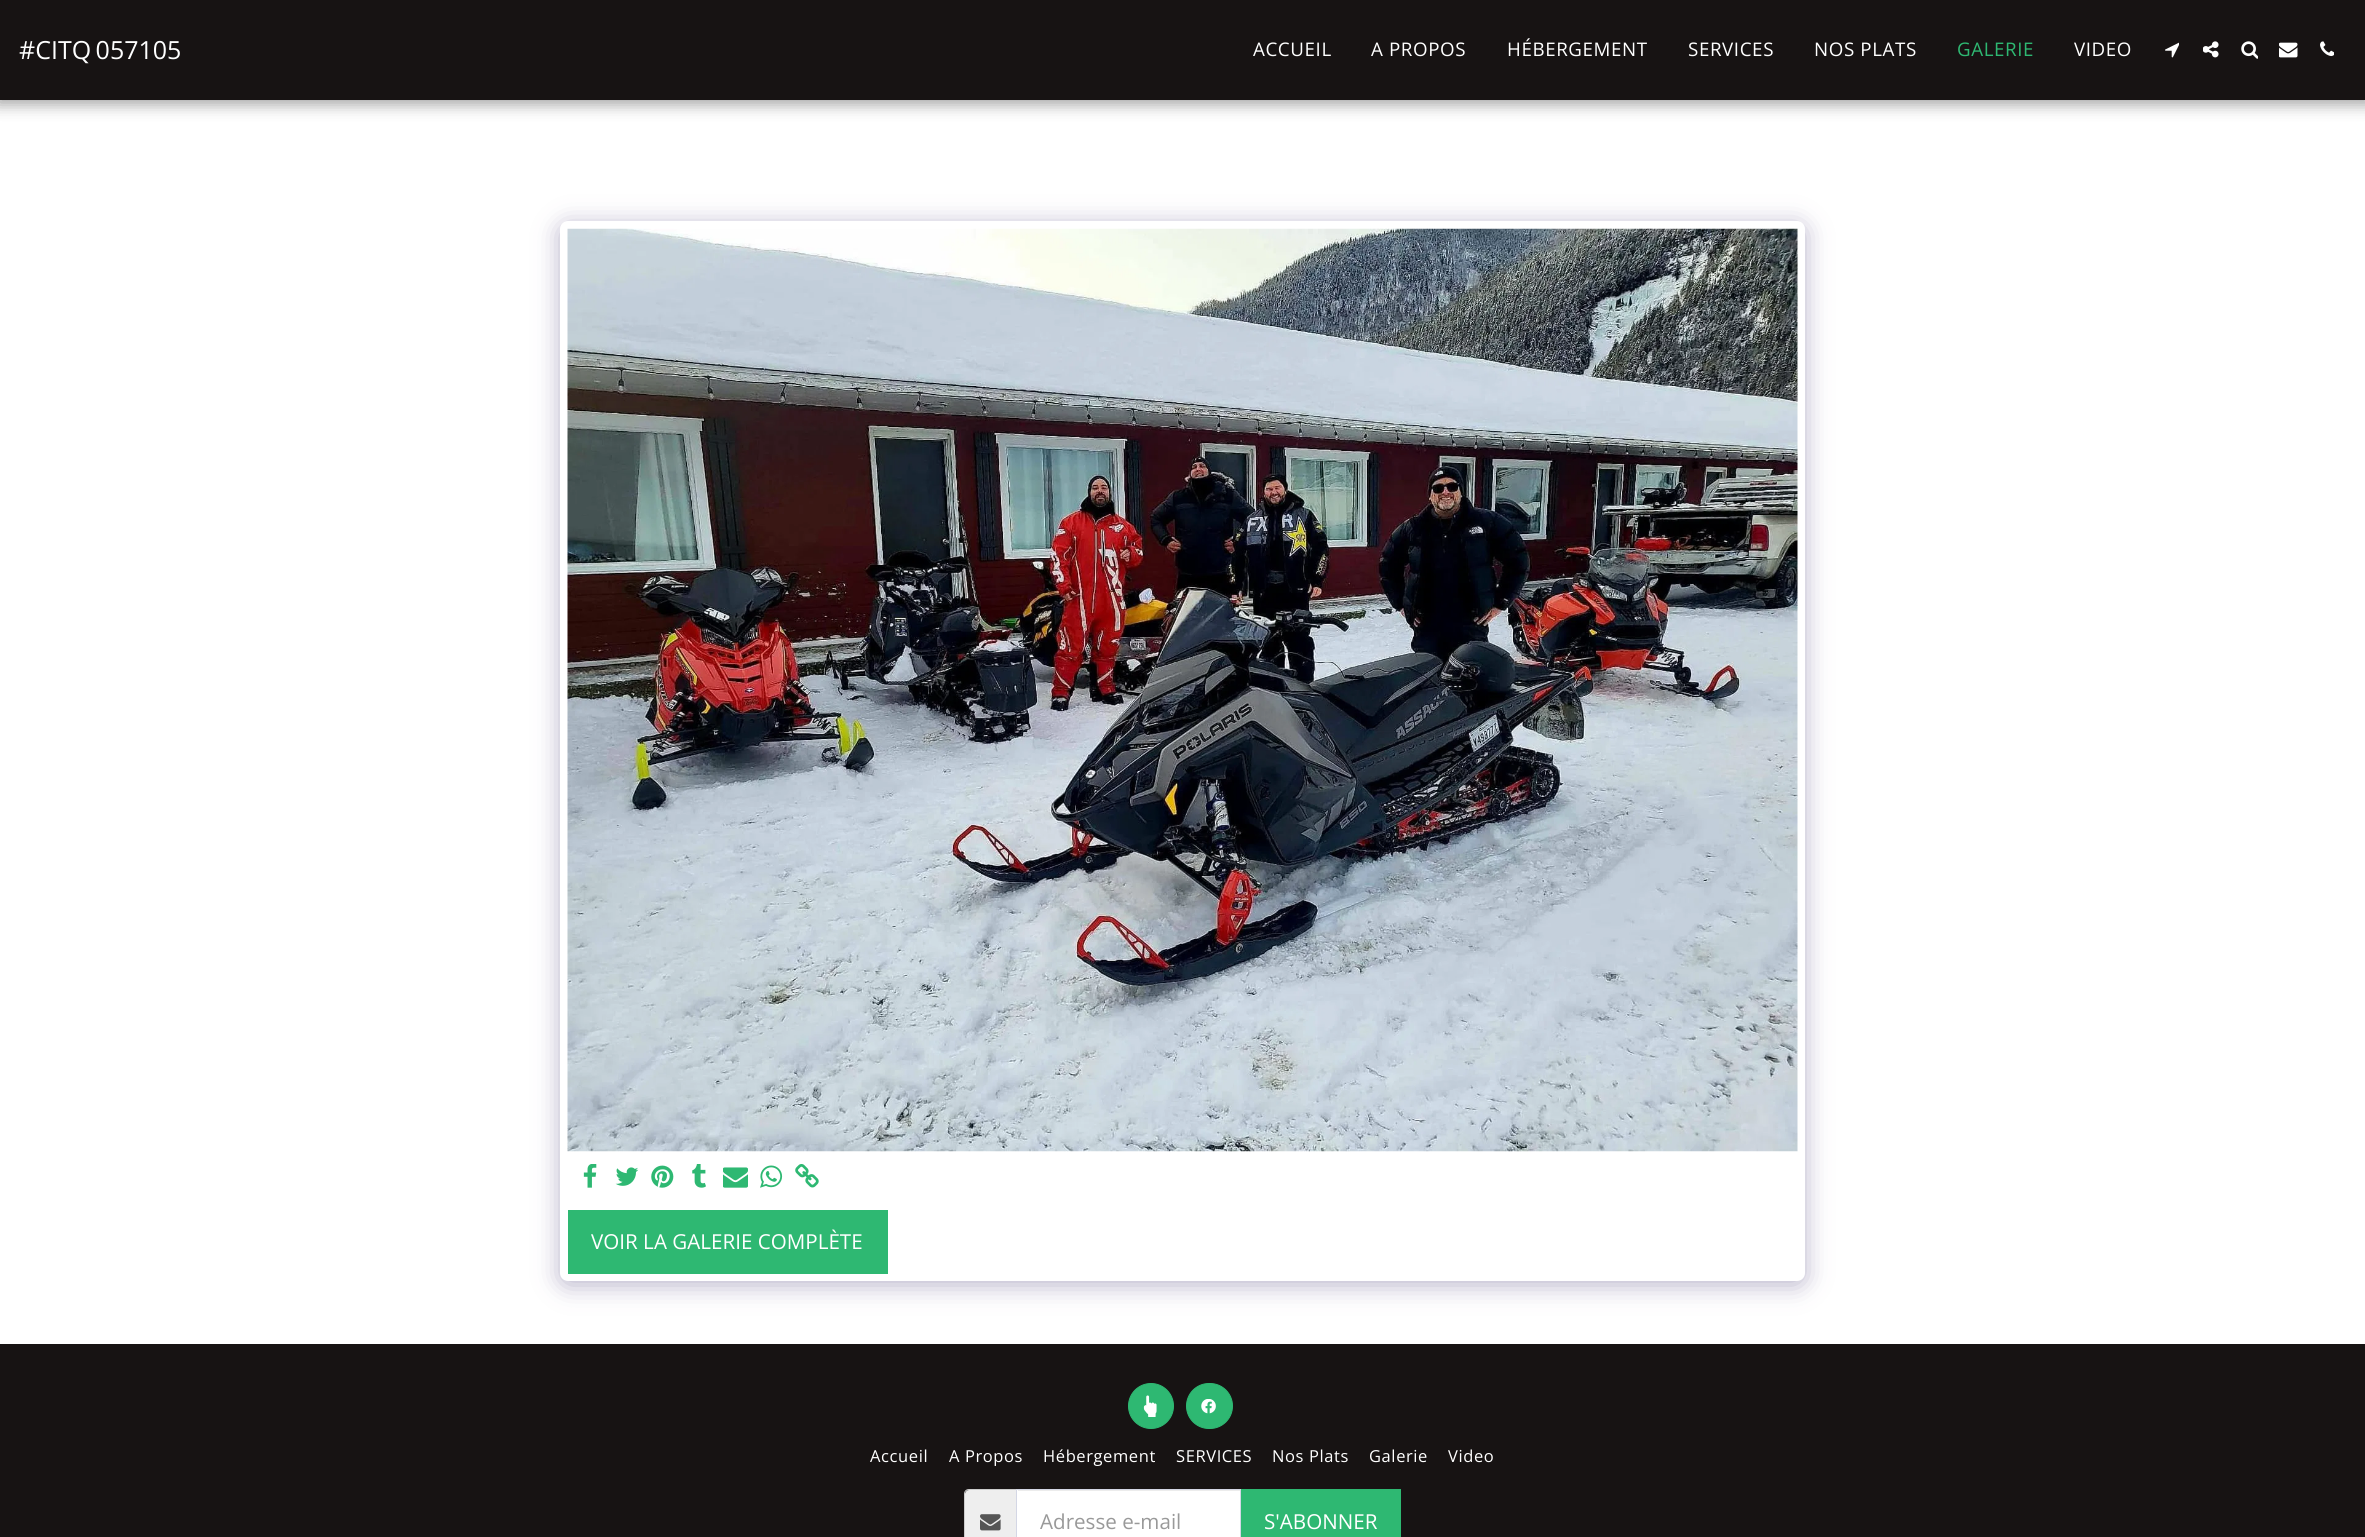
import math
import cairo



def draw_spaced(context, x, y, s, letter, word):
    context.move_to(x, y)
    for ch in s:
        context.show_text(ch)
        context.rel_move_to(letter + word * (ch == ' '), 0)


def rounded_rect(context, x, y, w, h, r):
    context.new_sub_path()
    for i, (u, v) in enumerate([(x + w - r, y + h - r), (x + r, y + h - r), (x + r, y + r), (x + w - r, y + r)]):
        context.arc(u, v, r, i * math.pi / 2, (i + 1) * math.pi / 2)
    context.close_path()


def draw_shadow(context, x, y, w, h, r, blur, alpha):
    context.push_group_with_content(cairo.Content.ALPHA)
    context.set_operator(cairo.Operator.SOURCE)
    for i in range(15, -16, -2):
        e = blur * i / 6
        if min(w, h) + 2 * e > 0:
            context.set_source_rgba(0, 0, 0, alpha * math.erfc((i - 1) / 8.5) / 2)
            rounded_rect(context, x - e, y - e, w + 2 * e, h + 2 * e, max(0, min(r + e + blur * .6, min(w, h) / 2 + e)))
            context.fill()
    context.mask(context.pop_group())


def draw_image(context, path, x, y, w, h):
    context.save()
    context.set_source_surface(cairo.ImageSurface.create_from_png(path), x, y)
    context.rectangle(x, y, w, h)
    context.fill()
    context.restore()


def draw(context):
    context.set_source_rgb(1, 1, 1)
    context.paint()
    context.set_source_rgb(0, 0, 0)
    draw_shadow(context, -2, 0, 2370, 105, 0, 7.5, 0.35)
    context.set_source_rgb(23 / 255, 19 / 255, 19 / 255)
    context.rectangle(0, 0, 2365, 100)
    context.fill()
    draw_image(context, "images/1.png", 2165, 42, 14, 16)
    draw_image(context, "images/2.png", 2203, 41, 16, 17)
    draw_image(context, "images/3.png", 2241, 41, 17, 18)
    draw_image(context, "images/4.png", 2279, 42, 19, 16)
    draw_image(context, "images/5.png", 2320, 41, 14, 16)
    context.set_source_rgb(77 / 255, 63 / 255, 122 / 255)
    draw_shadow(context, 560, 225, 1245, 1060, 8, 12.5, 0.4)
    context.set_source_rgb(1, 1, 1)
    rounded_rect(context, 560, 221, 1245, 1060, 8)
    context.fill()
    draw_image(context, "images/6.png", 567, 228, 1231, 924)
    draw_image(context, "images/7.png", 583, 1164, 14, 24)
    draw_image(context, "images/8.png", 615, 1167, 24, 19)
    draw_image(context, "images/9.png", 651, 1165, 23, 23)
    draw_image(context, "images/10.png", 692, 1164, 14, 24)
    draw_image(context, "images/11.png", 723, 1167, 25, 21)
    draw_image(context, "images/12.png", 760, 1165, 23, 23)
    draw_image(context, "images/13.png", 795, 1164, 24, 24)
    context.set_source_rgb(46 / 255, 184 / 255, 114 / 255)
    context.rectangle(568, 1210, 320, 64)
    context.fill()
    context.set_source_rgb(23 / 255, 19 / 255, 19 / 255)
    context.rectangle(0, 1344, 2365, 193)
    context.fill()
    context.set_source_rgb(46 / 255, 184 / 255, 114 / 255)
    context.arc(1151, 1406, 22.5, 0, 2 * math.pi)
    context.fill_preserve()
    context.set_line_width(1)
    context.stroke()
    draw_image(context, "images/14.png", 1143, 1395, 14, 22)
    rounded_rect(context, 1186.5, 1383.5, 46, 45, 22.5)
    context.fill_preserve()
    context.stroke()
    draw_image(context, "images/15.png", 1201, 1399, 15, 15)
    context.set_source_rgb(238 / 255, 238 / 255, 238 / 255)
    context.new_path()
    context.move_to(969, 1490)
    context.line_to(1016, 1490)
    context.line_to(1016, 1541)
    context.line_to(969, 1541)
    context.curve_to(967, 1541, 965, 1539, 965, 1537)
    context.line_to(965, 1494)
    context.curve_to(965, 1492, 967, 1490, 969, 1490)
    context.close_path()
    context.fill()
    context.set_source_rgb(204 / 255, 204 / 255, 204 / 255)
    context.set_fill_rule(cairo.FillRule.EVEN_ODD)
    context.new_path()
    context.move_to(969, 1489)
    context.line_to(1016, 1489)
    context.line_to(1016, 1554)
    context.line_to(969, 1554)
    context.curve_to(966, 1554, 964, 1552, 964, 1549)
    context.line_to(964, 1494)
    context.curve_to(964, 1491, 966, 1489, 969, 1489)
    context.close_path()
    context.move_to(969, 1490)
    context.line_to(1016, 1490)
    context.line_to(1016, 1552)
    context.curve_to(1010, 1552, 969, 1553, 967, 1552)
    context.line_to(965, 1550)
    context.line_to(965, 1493)
    context.line_to(966, 1491)
    context.close_path()
    context.fill()
    draw_image(context, "images/16.png", 980, 1514, 21, 17)
    context.set_source_rgb(1, 1, 1)
    context.rectangle(1017, 1490, 223, 47)
    context.fill()
    context.set_source_rgb(236 / 255, 236 / 255, 236 / 255)
    context.rectangle(1018, 1490, 222, 1)
    context.fill()
    context.rectangle(1016.5, 1489.5, 224, 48)
    context.set_source_rgb(212 / 255, 215 / 255, 229 / 255)
    context.stroke()
    context.set_source_rgb(46 / 255, 184 / 255, 114 / 255)
    context.rectangle(1241, 1489, 160, 48)
    context.fill()
    context.select_font_face("Open Sans")
    context.set_font_size(25)
    context.set_source_rgb(1, 1, 1)
    draw_spaced(context, 19, 59, "#CITQ 057105", 0, -2)
    context.set_font_size(18.75)
    draw_spaced(context, 1253, 56, "ACCUEIL", 0.6, 0)
    draw_spaced(context, 1371, 56, "A PROPOS", 0.6, 0)
    draw_spaced(context, 1507, 56, "HÉBERGEMENT", 0.6, 0)
    draw_spaced(context, 1688, 56, "SERVICES", 0.6, 0)
    draw_spaced(context, 1814, 56, "NOS PLATS", 0.6, 0)
    context.set_source_rgb(46 / 255, 184 / 255, 114 / 255)
    draw_spaced(context, 1957, 56, "GALERIE", 0.6, 0)
    context.set_source_rgb(1, 1, 1)
    draw_spaced(context, 2074, 56, "VIDEO", 0.6, 0)
    context.set_font_size(20.6)
    context.move_to(591, 1249)
    context.show_text("VOIR LA GALERIE COMPLÈTE")
    context.set_font_size(16.5)
    draw_spaced(context, 870, 1462, "Accueil", 0.6, 0)
    draw_spaced(context, 949, 1462, "A Propos", 0.6, 0)
    draw_spaced(context, 1043, 1462, "Hébergement", 0.6, 0)
    draw_spaced(context, 1176, 1462, "SERVICES", 0.6, 0)
    draw_spaced(context, 1272, 1462, "Nos Plats", 0.6, 0)
    draw_spaced(context, 1369, 1462, "Galerie", 0.6, 0)
    draw_spaced(context, 1448, 1462, "Video", 0.6, 0)
    context.set_font_size(20.6)
    context.set_source_rgb(153 / 255, 153 / 255, 153 / 255)
    context.move_to(1040, 1529)
    context.show_text("Adresse e-mail")
    context.set_source_rgb(1, 1, 1)
    context.move_to(1264, 1529)
    context.show_text("S'ABONNER")


surface = cairo.ImageSurface(cairo.Format.RGB24, 2365, 1537)
context = cairo.Context(surface)
options = cairo.FontOptions()
options.set_hint_metrics(cairo.HintMetrics.OFF)
options.set_hint_style(cairo.HintStyle.NONE)
context.set_font_options(options)
context.set_miter_limit(4)
draw(context)
surface.write_to_png("out.png")
